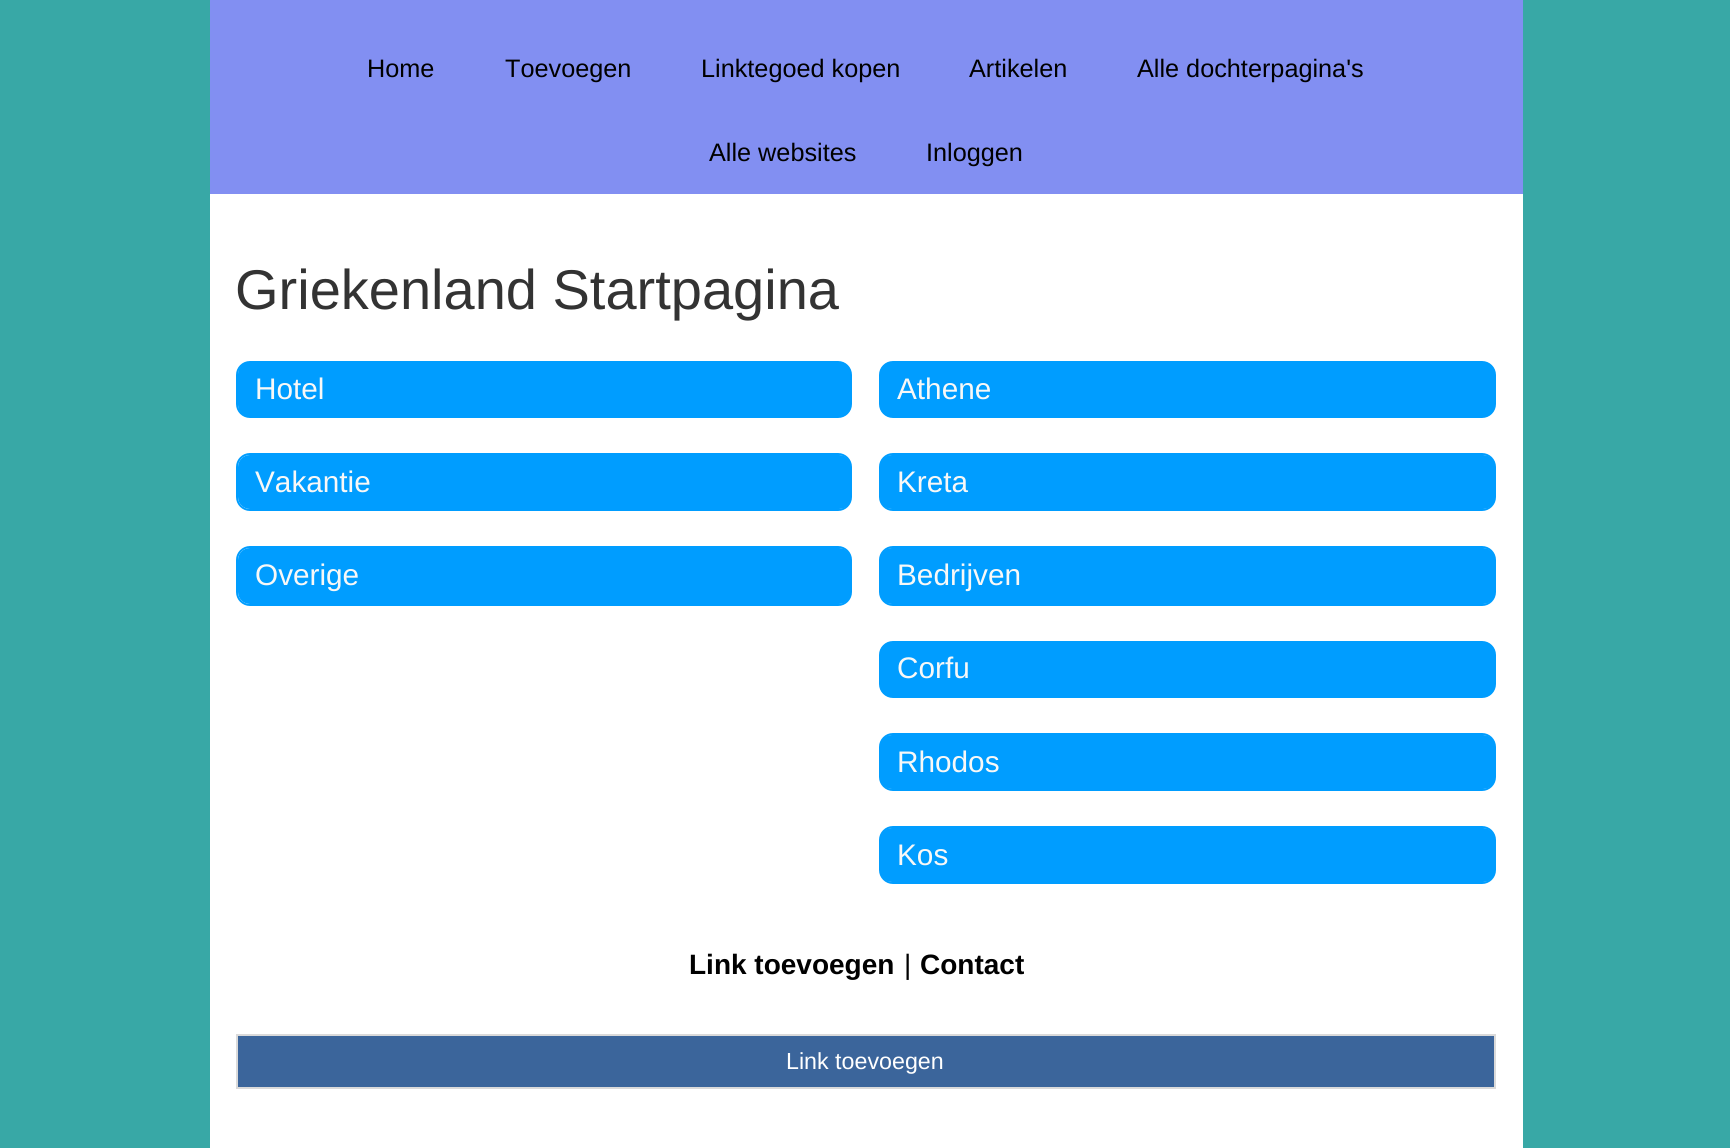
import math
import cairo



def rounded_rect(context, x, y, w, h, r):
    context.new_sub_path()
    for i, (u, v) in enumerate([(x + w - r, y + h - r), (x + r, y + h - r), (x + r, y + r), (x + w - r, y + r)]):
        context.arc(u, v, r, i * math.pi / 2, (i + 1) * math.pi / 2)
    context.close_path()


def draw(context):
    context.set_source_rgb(56 / 255, 168 / 255, 166 / 255)
    context.paint()
    context.set_source_rgb(130 / 255, 143 / 255, 242 / 255)
    context.rectangle(210, 0, 1313, 194)
    context.fill()
    context.set_source_rgb(1, 1, 1)
    context.rectangle(210, 194, 1313, 954)
    context.fill()
    rounded_rect(context, 237, 362, 614, 55, 13)
    context.set_source_rgb(0, 157 / 255, 1)
    context.stroke()
    rounded_rect(context, 238, 362, 613, 55, 12)
    context.fill()
    rounded_rect(context, 237, 454, 614, 56, 13)
    context.stroke()
    rounded_rect(context, 238, 455, 613, 54, 12)
    context.fill()
    rounded_rect(context, 237, 547, 614, 58, 13)
    context.stroke()
    rounded_rect(context, 238, 548, 613, 56, 12)
    context.fill()
    rounded_rect(context, 880, 362, 615, 55, 13)
    context.stroke()
    rounded_rect(context, 880, 362, 615, 55, 12)
    context.fill()
    rounded_rect(context, 880, 454, 615, 56, 13)
    context.stroke()
    rounded_rect(context, 880, 455, 615, 54, 12)
    context.fill()
    rounded_rect(context, 880, 547, 615, 58, 13)
    context.stroke()
    rounded_rect(context, 880, 548, 615, 56, 12)
    context.fill()
    rounded_rect(context, 880, 642, 615, 55, 13)
    context.stroke()
    rounded_rect(context, 880, 642, 615, 55, 12)
    context.fill()
    rounded_rect(context, 880, 734, 615, 56, 13)
    context.stroke()
    rounded_rect(context, 880, 735, 615, 54, 12)
    context.fill()
    rounded_rect(context, 880, 827, 615, 56, 13)
    context.stroke()
    rounded_rect(context, 880, 828, 615, 54, 12)
    context.fill()
    context.set_source_rgb(59 / 255, 101 / 255, 155 / 255)
    context.rectangle(237, 1035, 1258, 53)
    context.fill_preserve()
    context.set_source_rgb(218 / 255, 218 / 255, 218 / 255)
    context.stroke()
    context.select_font_face("Liberation Sans")
    context.set_font_size(25.25)
    context.set_source_rgb(0, 0, 0)
    context.move_to(367, 77)
    context.show_text("Home")
    context.move_to(505, 77)
    context.show_text("Toevoegen")
    context.move_to(701, 77)
    context.show_text("Linktegoed kopen")
    context.move_to(969, 77)
    context.show_text("Artikelen")
    context.move_to(1137, 77)
    context.show_text("Alle dochterpagina's")
    context.move_to(709, 161)
    context.show_text("Alle websites")
    context.move_to(926, 161)
    context.show_text("Inloggen")
    context.set_font_size(56)
    context.set_source_rgb(51 / 255, 51 / 255, 51 / 255)
    context.move_to(235, 309)
    context.show_text("Griekenland Startpagina")
    context.set_font_size(29.75)
    context.set_source_rgb(248 / 255, 248 / 255, 247 / 255)
    context.move_to(255, 399)
    context.show_text("Hotel")
    context.move_to(255, 492)
    context.show_text("Vakantie")
    context.move_to(255, 585)
    context.show_text("Overige")
    context.move_to(897, 399)
    context.show_text("Athene")
    context.move_to(897, 492)
    context.show_text("Kreta")
    context.move_to(897, 585)
    context.show_text("Bedrijven")
    context.move_to(897, 678)
    context.show_text("Corfu")
    context.move_to(897, 772)
    context.show_text("Rhodos")
    context.move_to(897, 865)
    context.show_text("Kos")
    context.select_font_face("Liberation Sans", cairo.FontSlant.NORMAL, cairo.FontWeight.BOLD)
    context.set_font_size(28)
    context.set_source_rgb(0, 0, 0)
    context.move_to(689, 974)
    context.show_text("Link toevoegen")
    context.select_font_face("Liberation Sans")
    context.move_to(904, 974)
    context.show_text("|")
    context.select_font_face("Liberation Sans", cairo.FontSlant.NORMAL, cairo.FontWeight.BOLD)
    context.move_to(920, 974)
    context.show_text("Contact")
    context.select_font_face("Liberation Sans")
    context.set_font_size(23.25)
    context.set_source_rgb(1, 1, 1)
    context.move_to(786, 1069)
    context.show_text("Link toevoegen")


surface = cairo.ImageSurface(cairo.Format.RGB24, 1730, 1148)
context = cairo.Context(surface)
options = cairo.FontOptions()
options.set_hint_metrics(cairo.HintMetrics.OFF)
options.set_hint_style(cairo.HintStyle.NONE)
context.set_font_options(options)
context.set_miter_limit(4)
draw(context)
surface.write_to_png("out.png")
